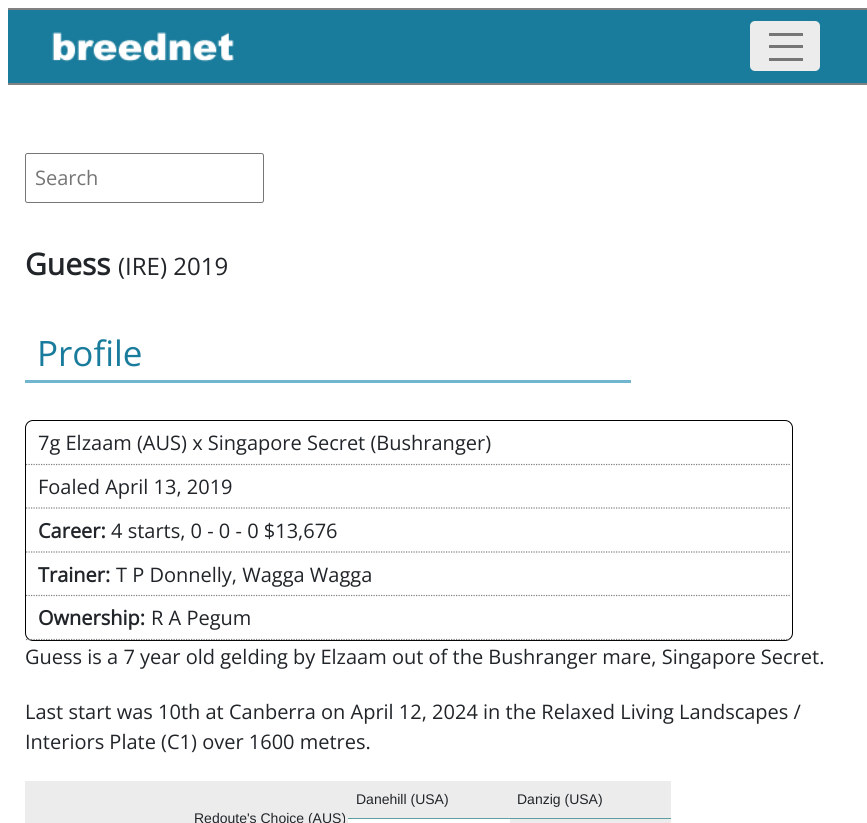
import math
import cairo



def rounded_rect(context, x, y, w, h, r):
    context.new_sub_path()
    for i, (u, v) in enumerate([(x + w - r, y + h - r), (x + r, y + h - r), (x + r, y + r), (x + w - r, y + r)]):
        context.arc(u, v, r, i * math.pi / 2, (i + 1) * math.pi / 2)
    context.close_path()


def draw_image(context, path, x, y, w, h):
    context.save()
    context.set_source_surface(cairo.ImageSurface.create_from_png(path), x, y)
    context.rectangle(x, y, w, h)
    context.fill()
    context.restore()


def draw(context):
    context.set_source_rgb(1, 1, 1)
    context.paint()
    context.set_source_rgb(128 / 255, 128 / 255, 128 / 255)
    context.rectangle(8, 8, 859, 2)
    context.fill()
    context.rectangle(8, 83, 859, 2)
    context.fill()
    context.set_source_rgb(26 / 255, 124 / 255, 156 / 255)
    context.rectangle(8, 10, 859, 73)
    context.fill()
    draw_image(context, "images/1.png", 52, 32, 182, 30)
    context.set_source_rgb(236 / 255, 236 / 255, 236 / 255)
    rounded_rect(context, 750, 21, 70, 50, 5)
    context.fill()
    context.set_source_rgb(118 / 255, 118 / 255, 118 / 255)
    context.rectangle(769, 33, 34, 3)
    context.fill()
    context.rectangle(769, 45, 34, 3)
    context.fill()
    context.rectangle(769, 58, 34, 3)
    context.fill()
    rounded_rect(context, 25.5, 153.5, 238, 49, 2)
    context.set_line_width(1)
    context.stroke()
    context.set_source_rgb(111 / 255, 182 / 255, 206 / 255)
    context.rectangle(25, 380, 606, 3)
    context.fill()
    rounded_rect(context, 25.5, 420.5, 767, 220, 7.5)
    context.set_source_rgb(0, 0, 0)
    context.stroke()
    context.new_path()
    context.move_to(26, 464.5)
    context.line_to(791, 464.5)
    context.set_source_rgb(128 / 255, 128 / 255, 128 / 255)
    context.set_line_width(1.2)
    context.set_dash([1.25, 1.25])
    context.stroke()
    context.new_path()
    context.move_to(26, 508)
    context.line_to(791, 508)
    context.stroke()
    context.new_path()
    context.move_to(26, 552)
    context.line_to(791, 552)
    context.stroke()
    context.new_path()
    context.move_to(26, 595.5)
    context.line_to(791, 595.5)
    context.stroke()
    context.new_path()
    context.move_to(26, 639.5)
    context.line_to(791, 639.5)
    context.stroke()
    context.set_source_rgb(236 / 255, 236 / 255, 236 / 255)
    context.rectangle(25, 781, 323, 42)
    context.fill()
    context.rectangle(348, 781, 323, 37)
    context.fill()
    context.set_source_rgb(95 / 255, 158 / 255, 160 / 255)
    context.rectangle(348, 818, 323, 1)
    context.fill()
    context.set_source_rgb(236 / 255, 236 / 255, 236 / 255)
    context.rectangle(510, 819, 161, 4)
    context.fill()
    context.select_font_face("Open Sans")
    context.set_font_size(20)
    context.set_source_rgb(117 / 255, 117 / 255, 117 / 255)
    context.move_to(35, 185)
    context.show_text("Search")
    context.select_font_face("Open Sans", cairo.FontSlant.NORMAL, cairo.FontWeight.BOLD)
    context.set_font_size(30)
    context.set_source_rgb(33 / 255, 37 / 255, 41 / 255)
    context.move_to(25, 275)
    context.show_text("Guess")
    context.select_font_face("Open Sans")
    context.set_font_size(24)
    context.move_to(118, 275)
    context.show_text("(IRE) 2019")
    context.set_font_size(35)
    context.set_source_rgb(26 / 255, 124 / 255, 156 / 255)
    context.move_to(37, 366)
    context.show_text("Profile")
    context.set_font_size(20)
    context.set_source_rgb(33 / 255, 37 / 255, 41 / 255)
    context.move_to(38, 450)
    context.show_text("7g Elzaam (AUS) x Singapore Secret (Bushranger)")
    context.move_to(38, 494)
    context.show_text("Foaled April 13, 2019")
    context.select_font_face("Open Sans", cairo.FontSlant.NORMAL, cairo.FontWeight.BOLD)
    context.move_to(38, 538)
    context.show_text("Career:")
    context.select_font_face("Open Sans")
    context.move_to(111, 538)
    context.show_text("4 starts, 0 - 0 - 0 $13,676")
    context.select_font_face("Open Sans", cairo.FontSlant.NORMAL, cairo.FontWeight.BOLD)
    context.move_to(38, 582)
    context.show_text("Trainer:")
    context.select_font_face("Open Sans")
    context.move_to(116, 582)
    context.show_text("T P Donnelly, Wagga Wagga")
    context.select_font_face("Open Sans", cairo.FontSlant.NORMAL, cairo.FontWeight.BOLD)
    context.move_to(38, 625)
    context.show_text("Ownership:")
    context.select_font_face("Open Sans")
    context.move_to(151, 625)
    context.show_text("R A Pegum")
    context.move_to(25, 664)
    context.show_text("Guess is a 7 year old gelding by Elzaam out of the Bushranger mare, Singapore Secret.")
    context.move_to(25, 719)
    context.show_text("Last start was 10th at Canberra on April 12, 2024 in the Relaxed Living Landscapes /")
    context.move_to(25, 749)
    context.show_text("Interiors Plate (C1) over 1600 metres.")
    context.select_font_face("Liberation Sans")
    context.set_font_size(14)
    context.move_to(356, 804)
    context.show_text("Danehill (USA)")
    context.move_to(517, 804)
    context.show_text("Danzig (USA)")
    context.move_to(194, 823)
    context.show_text("Redoute's Choice (AUS)")


surface = cairo.ImageSurface(cairo.Format.RGB24, 867, 823)
context = cairo.Context(surface)
options = cairo.FontOptions()
options.set_hint_metrics(cairo.HintMetrics.OFF)
options.set_hint_style(cairo.HintStyle.NONE)
context.set_font_options(options)
context.set_miter_limit(4)
draw(context)
surface.write_to_png("out.png")
